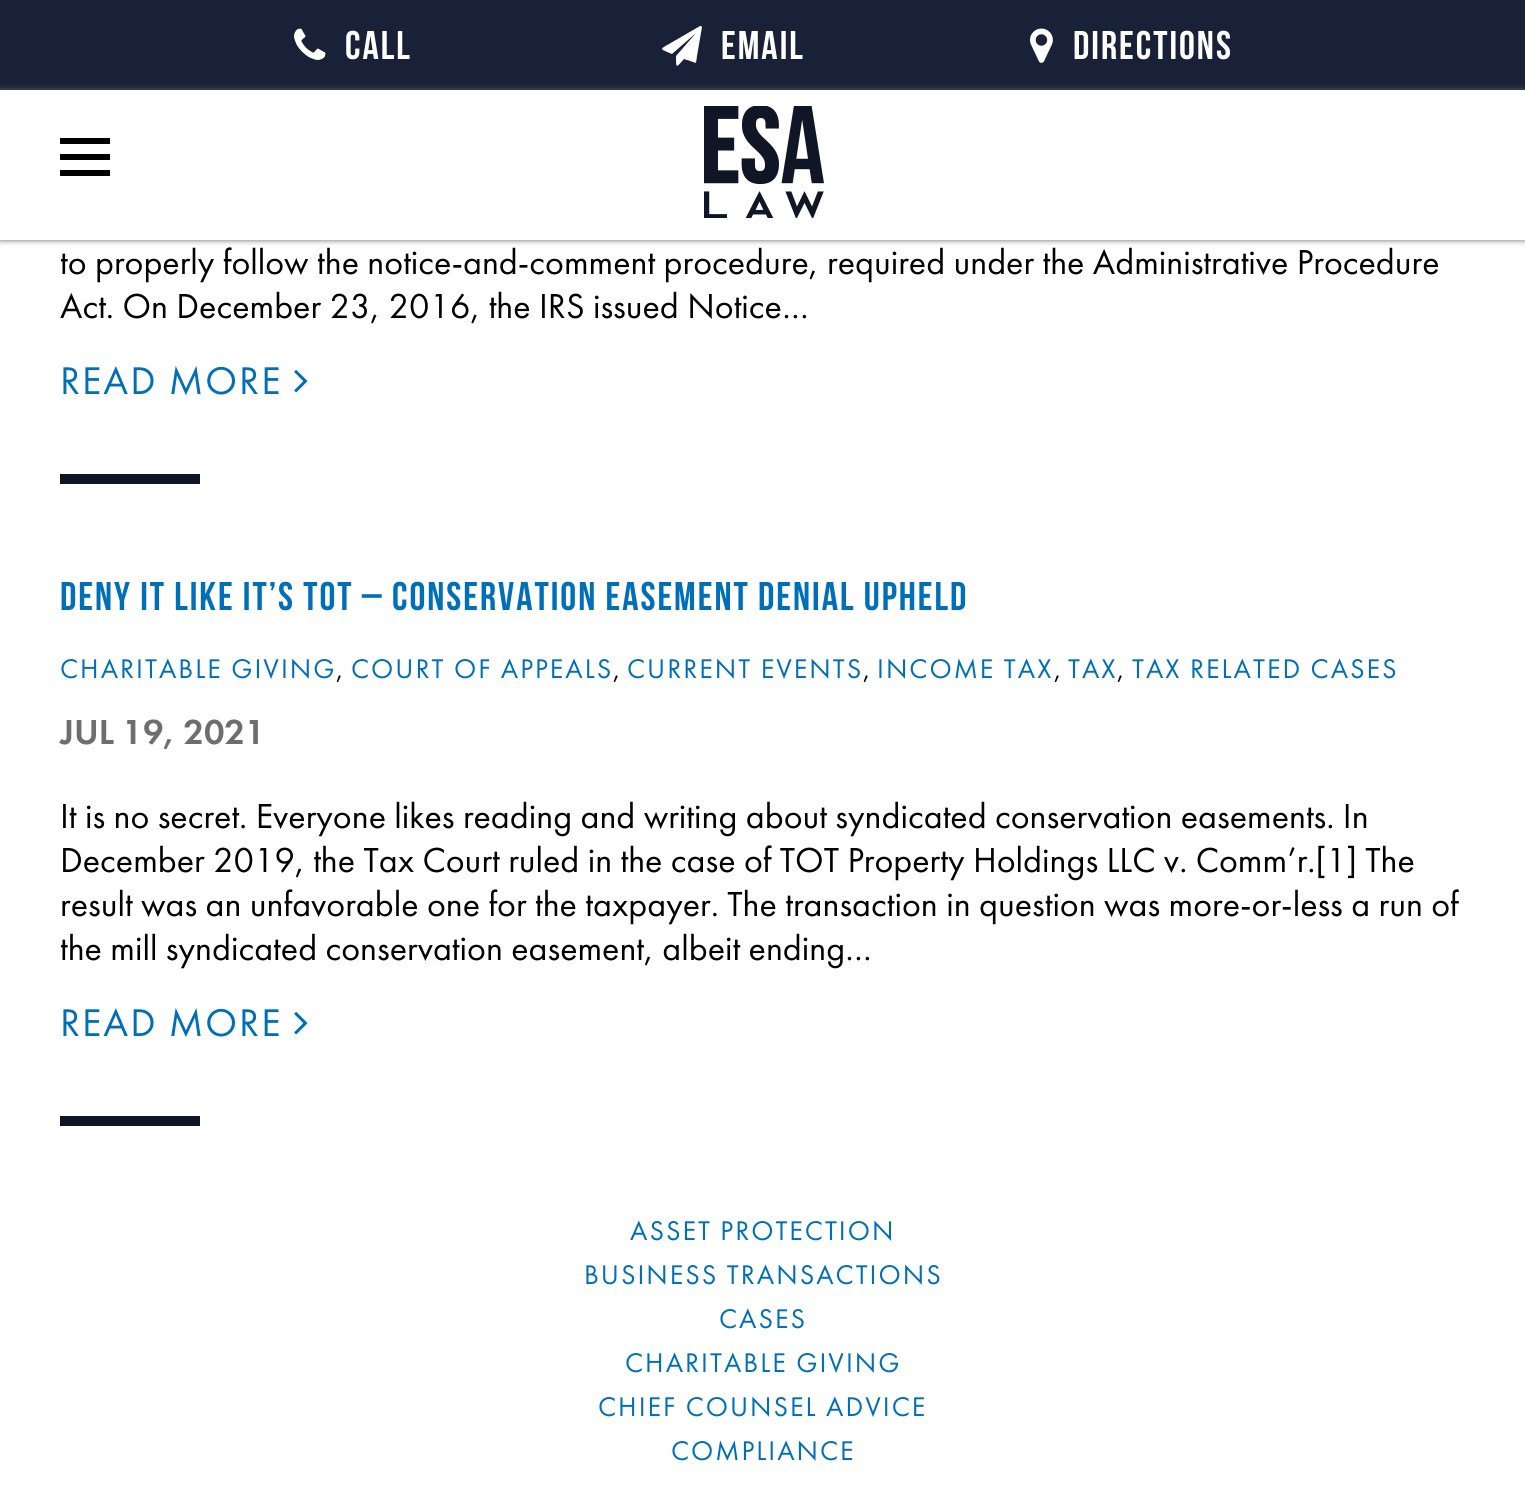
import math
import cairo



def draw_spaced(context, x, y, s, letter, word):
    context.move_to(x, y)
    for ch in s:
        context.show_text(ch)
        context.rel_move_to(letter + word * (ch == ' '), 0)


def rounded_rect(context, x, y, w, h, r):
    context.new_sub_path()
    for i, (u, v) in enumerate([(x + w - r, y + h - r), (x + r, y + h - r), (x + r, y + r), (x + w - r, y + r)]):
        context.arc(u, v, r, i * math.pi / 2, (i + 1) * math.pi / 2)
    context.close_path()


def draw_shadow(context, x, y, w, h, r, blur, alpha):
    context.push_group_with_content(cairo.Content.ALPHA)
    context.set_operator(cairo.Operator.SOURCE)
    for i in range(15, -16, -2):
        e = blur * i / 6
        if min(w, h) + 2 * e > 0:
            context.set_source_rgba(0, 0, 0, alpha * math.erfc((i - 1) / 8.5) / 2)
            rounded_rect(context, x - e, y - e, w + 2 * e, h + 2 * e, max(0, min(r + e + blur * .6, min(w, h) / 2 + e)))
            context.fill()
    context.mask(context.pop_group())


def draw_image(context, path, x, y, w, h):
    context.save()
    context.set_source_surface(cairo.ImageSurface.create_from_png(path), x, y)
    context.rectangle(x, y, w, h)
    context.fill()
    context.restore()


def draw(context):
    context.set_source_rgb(1, 1, 1)
    context.paint()
    context.set_source_rgb(24 / 255, 33 / 255, 55 / 255)
    context.rectangle(0, 0, 1525, 90)
    context.fill()
    draw_image(context, "images/1.png", 294, 28, 32, 32)
    context.set_source_rgb(1, 1, 1)
    context.new_path()
    context.move_to(701, 26)
    context.line_to(702, 27)
    context.line_to(697, 56)
    context.curve_to(696, 62, 697, 64, 693, 62)
    context.line_to(684, 59)
    context.curve_to(676, 68, 676, 69, 676, 56)
    context.line_to(696, 33)
    context.line_to(672, 54)
    context.curve_to(661, 49, 658, 50, 669, 44)
    context.line_to(700, 26)
    context.close_path()
    context.fill()
    draw_image(context, "images/2.png", 1030, 28, 23, 35)
    draw_image(context, "images/3.png", 294, 370, 14, 23)
    context.set_source_rgb(16 / 255, 22 / 255, 37 / 255)
    context.rectangle(60, 474, 140, 10)
    context.fill()
    draw_image(context, "images/3.png", 294, 1012, 14, 23)
    context.rectangle(60, 1116, 140, 10)
    context.fill()
    context.set_source_rgb(101 / 255, 100 / 255, 100 / 255)
    draw_shadow(context, 0, 90, 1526, 150, 0, 3, 1)
    context.set_source_rgb(1, 1, 1)
    context.rectangle(0, 90, 1525, 150)
    context.fill()
    context.set_source_rgb(0, 0, 0)
    context.rectangle(60, 154, 50, 6)
    context.fill()
    context.rectangle(60, 138, 50, 6)
    context.fill()
    context.rectangle(60, 170, 50, 6)
    context.fill()
    draw_image(context, "images/4.png", 704, 106, 120, 112)
    context.select_font_face("Bebas Neue")
    context.set_font_size(40)
    context.set_source_rgb(1, 1, 1)
    draw_spaced(context, 345, 59, "CALL", 2, 0)
    draw_spaced(context, 721, 59, "EMAIL", 2, 0)
    draw_spaced(context, 1073, 59, "DIRECTIONS", 2, 0)
    context.select_font_face("Futura PT")
    context.set_font_size(36)
    context.set_source_rgb(0, 0, 0)
    context.move_to(60, 274)
    context.show_text("to properly follow the notice-and-comment procedure, required under the Administrative Procedure")
    context.move_to(60, 318)
    context.show_text("Act. On December 23, 2016, the IRS issued Notice…")
    context.set_font_size(40)
    context.set_source_rgb(0, 111 / 255, 186 / 255)
    draw_spaced(context, 60, 394, "READ MORE", 2, 0)
    context.select_font_face("Bebas Neue")
    draw_spaced(context, 60, 610, "DENY IT LIKE IT’S TOT – CONSERVATION EASEMENT DENIAL UPHELD", 2, 0)
    context.select_font_face("Futura PT")
    context.set_font_size(28)
    draw_spaced(context, 60, 678, "CHARITABLE GIVING", 2, 0)
    context.set_source_rgb(0, 0, 0)
    context.move_to(336, 678)
    context.show_text(",")
    context.set_source_rgb(0, 111 / 255, 186 / 255)
    draw_spaced(context, 351, 678, "COURT OF APPEALS", 2, 0)
    context.set_source_rgb(0, 0, 0)
    context.move_to(613, 678)
    context.show_text(",")
    context.set_source_rgb(0, 111 / 255, 186 / 255)
    draw_spaced(context, 627, 678, "CURRENT EVENTS", 2, 0)
    context.set_source_rgb(0, 0, 0)
    context.move_to(863, 678)
    context.show_text(",")
    context.set_source_rgb(0, 111 / 255, 186 / 255)
    draw_spaced(context, 877, 678, "INCOME TAX", 2, 0)
    context.set_source_rgb(0, 0, 0)
    context.move_to(1054, 678)
    context.show_text(",")
    context.set_source_rgb(0, 111 / 255, 186 / 255)
    draw_spaced(context, 1068, 678, "TAX", 2, 0)
    context.set_source_rgb(0, 0, 0)
    context.move_to(1117, 678)
    context.show_text(",")
    context.set_source_rgb(0, 111 / 255, 186 / 255)
    draw_spaced(context, 1132, 678, "TAX RELATED CASES", 2, 0)
    context.select_font_face("Futura PT Medium")
    context.set_font_size(36)
    context.set_source_rgb(111 / 255, 110 / 255, 110 / 255)
    context.move_to(60, 744)
    context.show_text("JUL 19, 2021")
    context.select_font_face("Futura PT")
    context.set_source_rgb(0, 0, 0)
    context.move_to(60, 828)
    context.show_text("It is no secret. Everyone likes reading and writing about syndicated conservation easements. In")
    context.move_to(60, 872)
    context.show_text("December 2019, the Tax Court ruled in the case of TOT Property Holdings LLC v. Comm’r.[1] The")
    context.move_to(60, 916)
    context.show_text("result was an unfavorable one for the taxpayer. The transaction in question was more-or-less a run of")
    context.move_to(60, 960)
    context.show_text("the mill syndicated conservation easement, albeit ending…")
    context.set_font_size(40)
    context.set_source_rgb(0, 111 / 255, 186 / 255)
    draw_spaced(context, 60, 1036, "READ MORE", 2, 0)
    context.set_font_size(28)
    draw_spaced(context, 630, 1240, "ASSET PROTECTION", 2, 0)
    draw_spaced(context, 584, 1284, "BUSINESS TRANSACTIONS", 2, 0)
    draw_spaced(context, 719, 1328, "CASES", 2, 0)
    draw_spaced(context, 625, 1372, "CHARITABLE GIVING", 2, 0)
    draw_spaced(context, 598, 1416, "CHIEF COUNSEL ADVICE", 2, 0)
    draw_spaced(context, 671, 1460, "COMPLIANCE", 2, 0)


surface = cairo.ImageSurface(cairo.Format.RGB24, 1525, 1496)
context = cairo.Context(surface)
options = cairo.FontOptions()
options.set_hint_metrics(cairo.HintMetrics.OFF)
options.set_hint_style(cairo.HintStyle.NONE)
context.set_font_options(options)
context.set_miter_limit(4)
draw(context)
surface.write_to_png("out.png")
